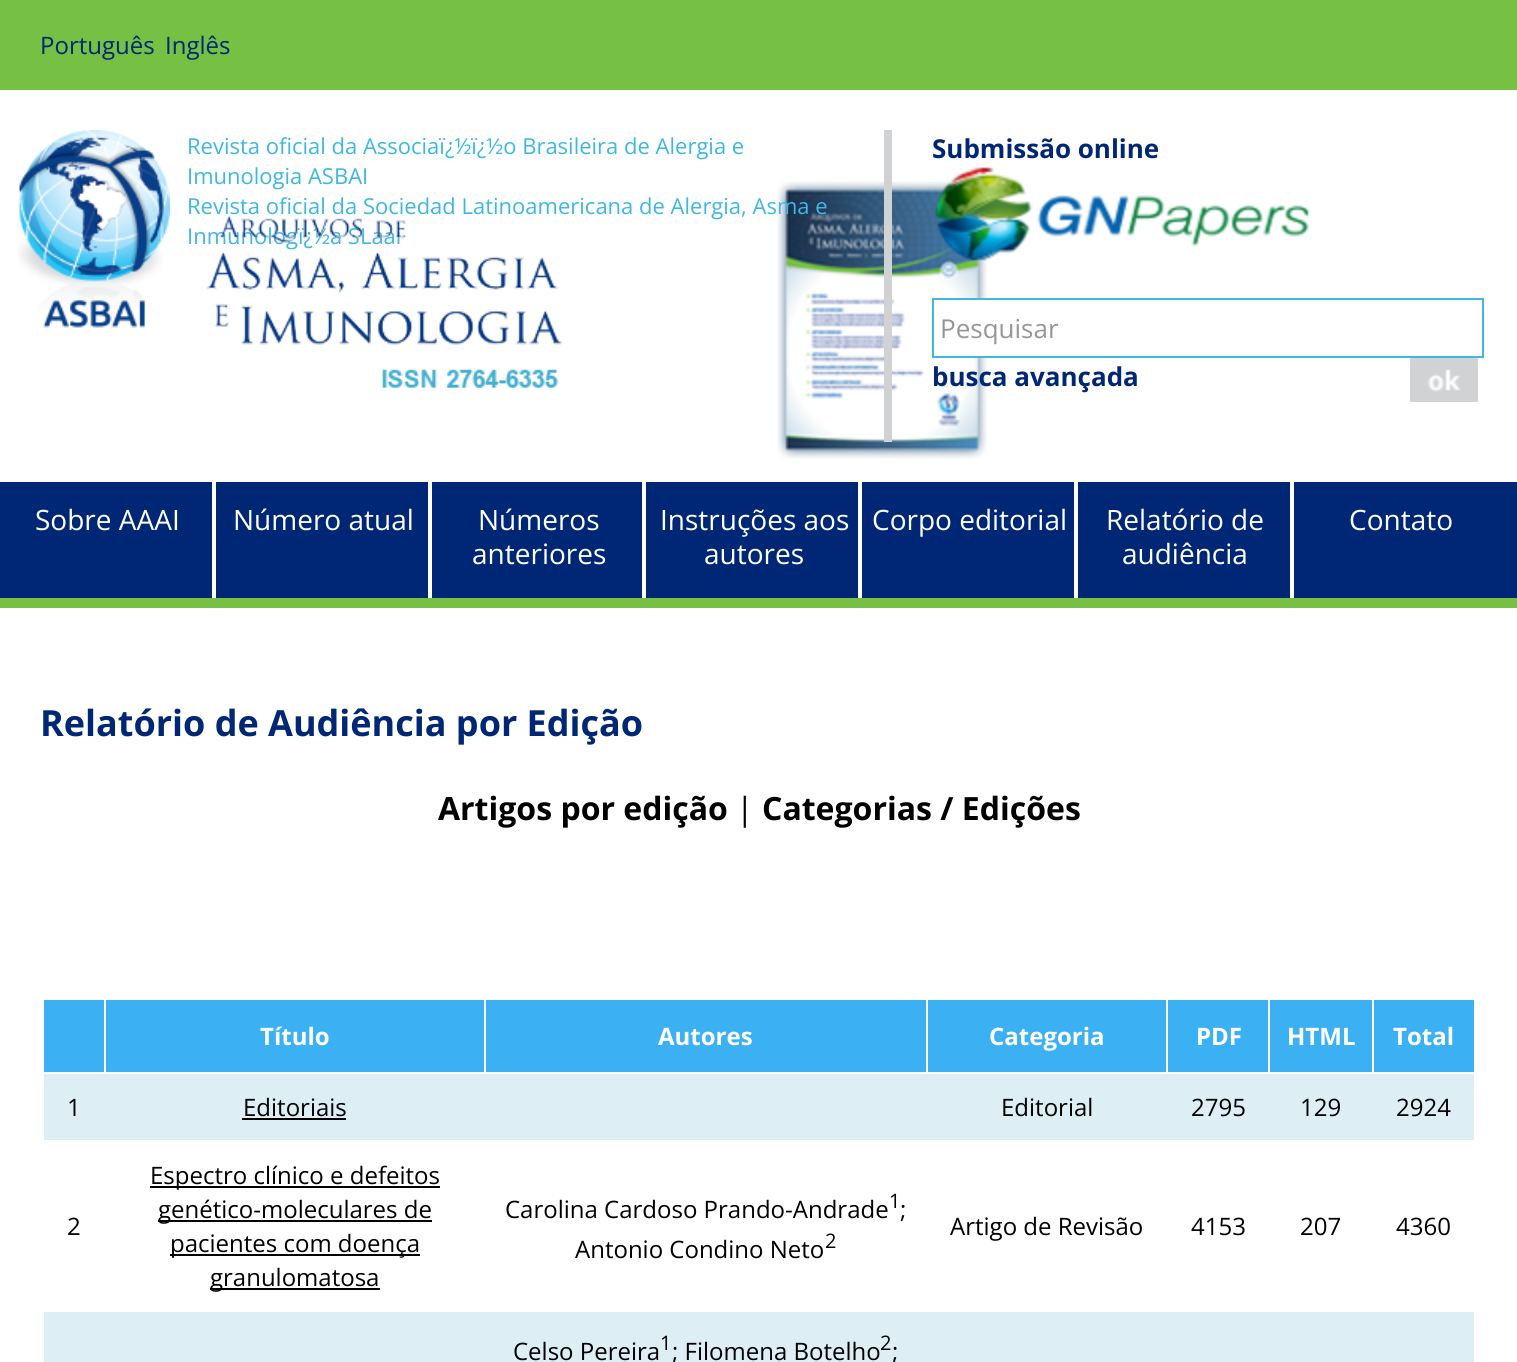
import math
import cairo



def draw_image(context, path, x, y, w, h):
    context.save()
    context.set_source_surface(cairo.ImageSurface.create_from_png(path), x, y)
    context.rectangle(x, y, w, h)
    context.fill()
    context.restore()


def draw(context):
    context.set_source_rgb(1, 1, 1)
    context.paint()
    draw_image(context, "images/1.png", 777, 181, 210, 278)
    context.set_source_rgb(118 / 255, 192 / 255, 67 / 255)
    context.rectangle(0, 0, 1517, 90)
    context.fill()
    draw_image(context, "images/2.png", 18, 130, 152, 198)
    context.set_source_rgb(209 / 255, 210 / 255, 212 / 255)
    context.rectangle(884, 130, 8, 312)
    context.fill()
    draw_image(context, "images/4.png", 935, 167, 374, 94)
    context.set_source_rgb(1, 1, 1)
    context.rectangle(959, 300, 28, 56)
    context.fill()
    context.rectangle(933, 299, 550, 58)
    context.set_source_rgb(61 / 255, 183 / 255, 228 / 255)
    context.stroke()
    draw_image(context, "images/5.png", 1410, 358, 68, 44)
    context.set_source_rgb(0, 39 / 255, 118 / 255)
    context.rectangle(0, 482, 1517, 116)
    context.fill()
    context.set_source_rgb(118 / 255, 192 / 255, 67 / 255)
    context.rectangle(0, 598, 1517, 10)
    context.fill()
    context.set_source_rgb(1, 1, 1)
    context.rectangle(212, 482, 4, 116)
    context.fill()
    context.rectangle(428, 482, 4, 116)
    context.fill()
    context.rectangle(642, 482, 4, 116)
    context.fill()
    context.rectangle(858, 482, 4, 116)
    context.fill()
    context.rectangle(1074, 482, 4, 116)
    context.fill()
    context.rectangle(1290, 482, 4, 116)
    context.fill()
    context.set_source_rgb(59 / 255, 176 / 255, 243 / 255)
    context.rectangle(44, 1000, 60, 72)
    context.fill()
    context.rectangle(106, 1000, 378, 72)
    context.fill()
    context.rectangle(486, 1000, 440, 72)
    context.fill()
    context.rectangle(928, 1000, 238, 72)
    context.fill()
    context.rectangle(1168, 1000, 100, 72)
    context.fill()
    context.rectangle(1270, 1000, 102, 72)
    context.fill()
    context.rectangle(1374, 1000, 100, 72)
    context.fill()
    context.set_source_rgb(221 / 255, 238 / 255, 245 / 255)
    context.rectangle(44, 1074, 1430, 66)
    context.fill()
    context.set_source_rgb(0, 0, 0)
    context.rectangle(242, 1118, 104, 2)
    context.fill()
    context.rectangle(150, 1186, 290, 2)
    context.fill()
    context.rectangle(158, 1220, 274, 2)
    context.fill()
    context.rectangle(170, 1254, 250, 2)
    context.fill()
    context.rectangle(210, 1288, 170, 2)
    context.fill()
    context.set_source_rgb(221 / 255, 238 / 255, 245 / 255)
    context.rectangle(44, 1312, 1430, 50)
    context.fill()
    context.select_font_face("Open Sans")
    context.set_font_size(24)
    context.set_source_rgb(0, 39 / 255, 118 / 255)
    context.move_to(40, 54)
    context.show_text("Português")
    context.move_to(165, 54)
    context.show_text("Inglês")
    context.set_font_size(22)
    context.set_source_rgb(61 / 255, 183 / 255, 228 / 255)
    context.move_to(187, 154)
    context.show_text("Revista oficial da Associaï¿½ï¿½o Brasileira de Alergia e")
    context.move_to(187, 184)
    context.show_text("Imunologia ASBAI")
    context.move_to(187, 214)
    context.show_text("Revista oficial da Sociedad Latinoamericana de Alergia, Asma e")
    context.move_to(187, 244)
    context.show_text("Inmunologï¿½a SLaai")
    draw_image(context, "images/3.png", 206, 215, 357, 173)
    context.select_font_face("Open Sans", cairo.FontSlant.NORMAL, cairo.FontWeight.BOLD)
    context.set_font_size(26)
    context.set_source_rgb(0, 39 / 255, 118 / 255)
    context.move_to(932, 158)
    context.show_text("Submissão online")
    context.select_font_face("Open Sans")
    context.set_source_rgb(150 / 255, 150 / 255, 150 / 255)
    context.move_to(940, 338)
    context.show_text("Pesquisar")
    context.select_font_face("Open Sans", cairo.FontSlant.NORMAL, cairo.FontWeight.BOLD)
    context.set_source_rgb(0, 39 / 255, 118 / 255)
    context.move_to(932, 386)
    context.show_text("busca avançada")
    context.select_font_face("Open Sans")
    context.set_font_size(28)
    context.set_source_rgb(1, 1, 1)
    context.move_to(35, 530)
    context.show_text("Sobre AAAI")
    context.move_to(233, 530)
    context.show_text("Número atual")
    context.move_to(478, 530)
    context.show_text("Números")
    context.move_to(472, 564)
    context.show_text("anteriores")
    context.move_to(660, 530)
    context.show_text("Instruções aos")
    context.move_to(704, 564)
    context.show_text("autores")
    context.move_to(872, 530)
    context.show_text("Corpo editorial")
    context.move_to(1106, 530)
    context.show_text("Relatório de")
    context.move_to(1122, 564)
    context.show_text("audiência")
    context.move_to(1349, 530)
    context.show_text("Contato")
    context.select_font_face("Open Sans", cairo.FontSlant.NORMAL, cairo.FontWeight.BOLD)
    context.set_font_size(36)
    context.set_source_rgb(0, 39 / 255, 118 / 255)
    context.move_to(40, 736)
    context.show_text("Relatório de Audiência por Edição")
    context.set_font_size(32)
    context.set_source_rgb(0, 0, 0)
    context.move_to(438, 820)
    context.show_text("Artigos por edição")
    context.select_font_face("Open Sans")
    context.move_to(736, 820)
    context.show_text("|")
    context.select_font_face("Open Sans", cairo.FontSlant.NORMAL, cairo.FontWeight.BOLD)
    context.move_to(762, 820)
    context.show_text("Categorias / Edições")
    context.set_font_size(24)
    context.set_source_rgb(1, 1, 1)
    context.move_to(260, 1045)
    context.show_text("Título")
    context.move_to(658, 1045)
    context.show_text("Autores")
    context.move_to(989, 1045)
    context.show_text("Categoria")
    context.move_to(1196, 1045)
    context.show_text("PDF")
    context.move_to(1287, 1045)
    context.show_text("HTML")
    context.move_to(1393, 1045)
    context.show_text("Total")
    context.select_font_face("Open Sans")
    context.set_source_rgb(0, 0, 0)
    context.move_to(67, 1116)
    context.show_text("1")
    context.move_to(243, 1116)
    context.show_text("Editoriais")
    context.move_to(1001, 1116)
    context.show_text("Editorial")
    context.move_to(1191, 1116)
    context.show_text("2795")
    context.move_to(1300, 1116)
    context.show_text("129")
    context.move_to(1396, 1116)
    context.show_text("2924")
    context.move_to(67, 1235)
    context.show_text("2")
    context.move_to(150, 1184)
    context.show_text("Espectro clínico e defeitos")
    context.move_to(158, 1218)
    context.show_text("genético-moleculares de")
    context.move_to(170, 1252)
    context.show_text("pacientes com doença")
    context.move_to(210, 1286)
    context.show_text("granulomatosa")
    context.move_to(505, 1218)
    context.show_text("Carolina Cardoso Prando-Andrade")
    context.set_font_size(20)
    context.move_to(889, 1208)
    context.show_text("1")
    context.set_font_size(24)
    context.move_to(900, 1218)
    context.show_text(";")
    context.move_to(575, 1258)
    context.show_text("Antonio Condino Neto")
    context.set_font_size(20)
    context.move_to(825, 1248)
    context.show_text("2")
    context.set_font_size(24)
    context.move_to(950, 1235)
    context.show_text("Artigo de Revisão")
    context.move_to(1191, 1235)
    context.show_text("4153")
    context.move_to(1300, 1235)
    context.show_text("207")
    context.move_to(1396, 1235)
    context.show_text("4360")
    context.move_to(513, 1360)
    context.show_text("Celso Pereira")
    context.set_font_size(20)
    context.move_to(660, 1350)
    context.show_text("1")
    context.set_font_size(24)
    context.move_to(672, 1360)
    context.show_text("; Filomena Botelho")
    context.set_font_size(20)
    context.move_to(880, 1350)
    context.show_text("2")
    context.set_font_size(24)
    context.move_to(892, 1360)
    context.show_text(";")


surface = cairo.ImageSurface(cairo.Format.RGB24, 1517, 1362)
context = cairo.Context(surface)
options = cairo.FontOptions()
options.set_hint_metrics(cairo.HintMetrics.OFF)
options.set_hint_style(cairo.HintStyle.NONE)
context.set_font_options(options)
context.set_miter_limit(4)
draw(context)
surface.write_to_png("out.png")
